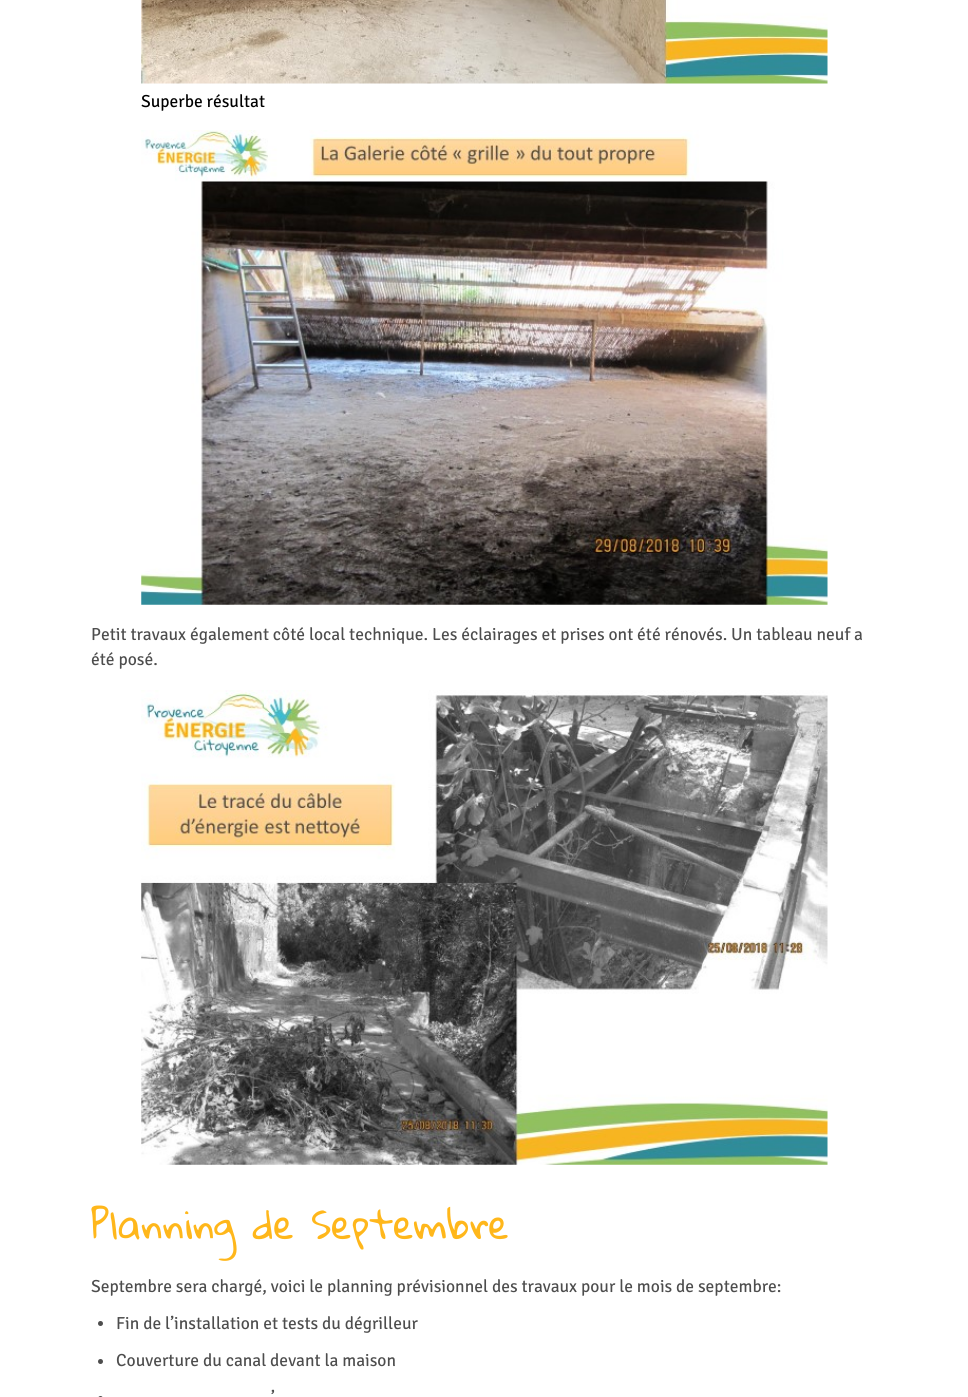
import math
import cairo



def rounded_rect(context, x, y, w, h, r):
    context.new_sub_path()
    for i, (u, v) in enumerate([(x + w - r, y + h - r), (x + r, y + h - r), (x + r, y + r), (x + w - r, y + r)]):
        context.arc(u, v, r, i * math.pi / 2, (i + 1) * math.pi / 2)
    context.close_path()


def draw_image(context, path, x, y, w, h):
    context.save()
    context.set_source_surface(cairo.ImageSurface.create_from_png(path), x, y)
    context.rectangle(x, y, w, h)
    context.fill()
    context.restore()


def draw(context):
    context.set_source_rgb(1, 1, 1)
    context.paint()
    draw_image(context, "images/1.png", 141, 0, 687, 84)
    draw_image(context, "images/2.png", 141, 130, 687, 475)
    draw_image(context, "images/3.png", 141, 690, 687, 475)
    context.set_source_rgb(77 / 255, 77 / 255, 77 / 255)
    context.arc(100.5, 1323.5, 2.5, 0, 2 * math.pi)
    context.fill()
    context.arc(100.5, 1361.5, 2.5, 0, 2 * math.pi)
    context.fill()
    rounded_rect(context, 98, 1396, 5, 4, 2.5)
    context.fill()
    context.select_font_face("Signika Negative")
    context.set_font_size(17.5)
    context.set_source_rgb(0, 0, 0)
    context.move_to(141, 107)
    context.show_text("Superbe résultat")
    context.set_source_rgb(77 / 255, 77 / 255, 77 / 255)
    context.move_to(91, 640)
    context.show_text("Petit travaux également côté local technique. Les éclairages et prises ont été rénovés. Un tableau neuf a")
    context.move_to(91, 665)
    context.show_text("été posé.")
    context.select_font_face("Gloria Hallelujah")
    context.set_font_size(38)
    context.set_source_rgb(1, 183 / 255, 27 / 255)
    context.move_to(91, 1239)
    context.show_text("Planning de Septembre")
    context.select_font_face("Signika Negative")
    context.set_font_size(17.5)
    context.set_source_rgb(77 / 255, 77 / 255, 77 / 255)
    context.move_to(91, 1292)
    context.show_text("Septembre sera chargé, voici le planning prévisionnel des travaux pour le mois de septembre:")
    context.move_to(116, 1329)
    context.show_text("Fin de l’installation et tests du dégrilleur")
    context.move_to(116, 1366)
    context.show_text("Couverture du canal devant la maison")
    context.move_to(271, 1403)
    context.show_text("’")


surface = cairo.ImageSurface(cairo.Format.RGB24, 968, 1397)
context = cairo.Context(surface)
options = cairo.FontOptions()
options.set_hint_metrics(cairo.HintMetrics.OFF)
options.set_hint_style(cairo.HintStyle.NONE)
context.set_font_options(options)
context.set_miter_limit(4)
draw(context)
surface.write_to_png("out.png")
